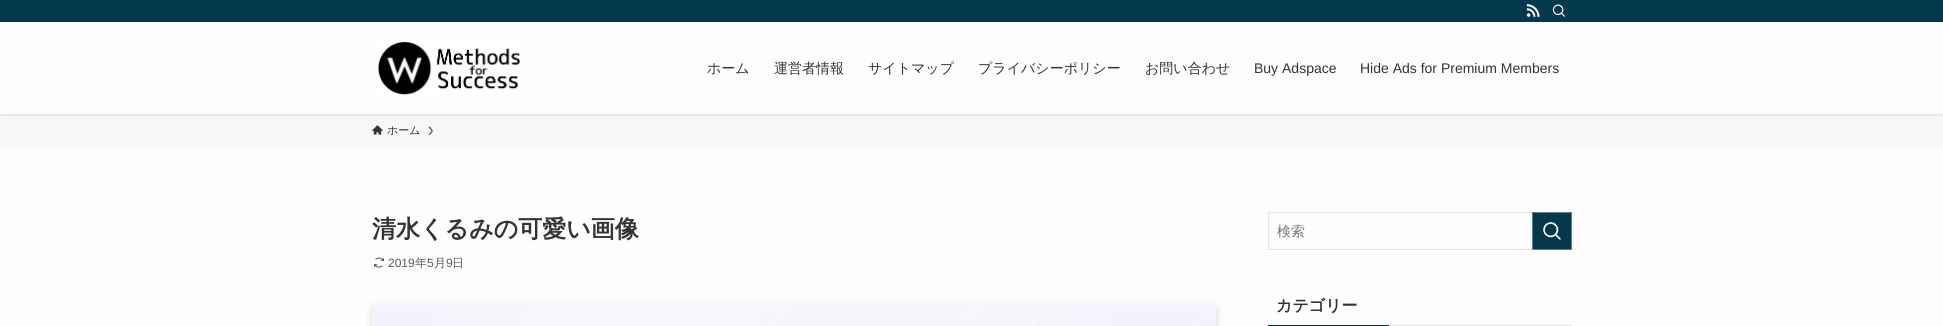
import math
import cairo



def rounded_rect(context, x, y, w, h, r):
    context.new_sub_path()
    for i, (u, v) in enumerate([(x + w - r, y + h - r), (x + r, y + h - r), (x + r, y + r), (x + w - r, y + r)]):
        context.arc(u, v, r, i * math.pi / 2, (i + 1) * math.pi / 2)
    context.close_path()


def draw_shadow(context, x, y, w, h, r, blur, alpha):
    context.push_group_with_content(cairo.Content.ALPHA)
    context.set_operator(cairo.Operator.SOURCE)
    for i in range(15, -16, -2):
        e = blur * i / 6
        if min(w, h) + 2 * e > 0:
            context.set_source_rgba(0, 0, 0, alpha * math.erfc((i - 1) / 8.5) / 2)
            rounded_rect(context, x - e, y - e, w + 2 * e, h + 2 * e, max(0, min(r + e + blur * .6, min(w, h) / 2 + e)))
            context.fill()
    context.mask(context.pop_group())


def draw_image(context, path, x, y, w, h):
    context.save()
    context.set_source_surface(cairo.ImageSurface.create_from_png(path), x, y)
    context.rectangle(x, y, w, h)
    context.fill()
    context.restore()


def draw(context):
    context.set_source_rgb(253 / 255, 253 / 255, 253 / 255)
    context.paint()
    context.set_source_rgb(247 / 255, 247 / 255, 247 / 255)
    context.rectangle(0, 114, 1943, 34)
    context.fill()
    context.save()
    context.rectangle(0, 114, 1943, 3)
    context.clip()
    context.set_source_rgb(0, 0, 0)
    draw_shadow(context, 0, 1, 1943, 114, 0, 2, 0.12)
    context.restore()
    context.set_source_rgb(4 / 255, 56 / 255, 76 / 255)
    context.rectangle(0, 0, 1943, 22)
    context.fill()
    draw_image(context, "images/1.png", 1526, 4, 14, 13)
    draw_image(context, "images/2.png", 1552, 4, 14, 13)
    draw_image(context, "images/3.png", 377, 41, 144, 54)
    draw_image(context, "images/4.png", 372, 125, 11, 10)
    context.set_source_rgb(90 / 255, 90 / 255, 90 / 255)
    context.new_path()
    context.move_to(430, 126.5)
    context.line_to(428.5, 127)
    context.line_to(431.5, 131)
    context.line_to(428.5, 135)
    context.line_to(430, 135)
    context.line_to(433, 131)
    context.close_path()
    context.fill()
    draw_image(context, "images/5.png", 374, 257, 10, 11)
    context.set_source_rgb(0, 0, 0)
    draw_shadow(context, 376, 313, 836, 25, 0, 4, 0.2)
    draw_shadow(context, 372, 307, 844, 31, 0, 4, 0.1)
    draw_image(context, "images/6.png", 372, 305, 844, 21)
    context.rectangle(1268.5, 212.5, 303, 37)
    context.set_source_rgb(227 / 255, 227 / 255, 227 / 255)
    context.set_line_width(1)
    context.stroke()
    context.set_source_rgb(4 / 255, 56 / 255, 76 / 255)
    context.rectangle(1532.5, 212.5, 39, 37)
    context.fill_preserve()
    context.set_source_rgb(102 / 255, 128 / 255, 138 / 255)
    context.stroke()
    draw_image(context, "images/7.png", 1543, 222, 18, 18)
    context.set_source_rgb(4 / 255, 56 / 255, 76 / 255)
    context.rectangle(1268, 325, 121, 1)
    context.fill()
    context.set_source_rgb(226 / 255, 226 / 255, 226 / 255)
    context.rectangle(1389, 325, 183, 1)
    context.fill()
    context.select_font_face("WenQuanYi Zen Hei Medium")
    context.set_font_size(14)
    context.set_source_rgb(51 / 255, 51 / 255, 51 / 255)
    context.move_to(707, 73)
    context.show_text("ホーム")
    context.move_to(774, 73)
    context.show_text("運営者情報")
    context.move_to(868, 73)
    context.show_text("サイトマップ")
    context.move_to(978, 73)
    context.show_text("プライバシーポリシー")
    context.move_to(1145, 73)
    context.show_text("お問い合わせ")
    context.select_font_face("Liberation Sans")
    context.move_to(1254, 73)
    context.show_text("Buy Adspace")
    context.move_to(1360, 73)
    context.show_text("Hide Ads for Premium Members")
    context.select_font_face("WenQuanYi Zen Hei Medium")
    context.set_font_size(11)
    context.move_to(387, 134)
    context.show_text("ホーム")
    context.select_font_face("WenQuanYi Zen Hei", cairo.FontSlant.NORMAL, cairo.FontWeight.BOLD)
    context.set_font_size(24)
    context.move_to(372, 237)
    context.show_text("清水くるみの可愛い画像")
    context.select_font_face("Liberation Sans")
    context.set_font_size(12)
    context.set_source_rgb(91 / 255, 91 / 255, 91 / 255)
    context.move_to(388, 267)
    context.show_text("2019")
    context.select_font_face("WenQuanYi Zen Hei Medium")
    context.move_to(415, 267)
    context.show_text("年")
    context.select_font_face("Liberation Sans")
    context.move_to(427, 267)
    context.show_text("5")
    context.select_font_face("WenQuanYi Zen Hei Medium")
    context.move_to(434, 267)
    context.show_text("月")
    context.select_font_face("Liberation Sans")
    context.move_to(446, 267)
    context.show_text("9")
    context.select_font_face("WenQuanYi Zen Hei Medium")
    context.move_to(452, 267)
    context.show_text("日")
    context.set_font_size(14)
    context.set_source_rgb(117 / 255, 117 / 255, 117 / 255)
    context.move_to(1277, 236)
    context.show_text("検索")
    context.select_font_face("WenQuanYi Zen Hei", cairo.FontSlant.NORMAL, cairo.FontWeight.BOLD)
    context.set_font_size(16)
    context.set_source_rgb(51 / 255, 51 / 255, 51 / 255)
    context.move_to(1276, 311)
    context.show_text("カテゴリー")


surface = cairo.ImageSurface(cairo.Format.RGB24, 1943, 326)
context = cairo.Context(surface)
options = cairo.FontOptions()
options.set_hint_metrics(cairo.HintMetrics.OFF)
options.set_hint_style(cairo.HintStyle.NONE)
context.set_font_options(options)
context.set_miter_limit(4)
draw(context)
surface.write_to_png("out.png")
